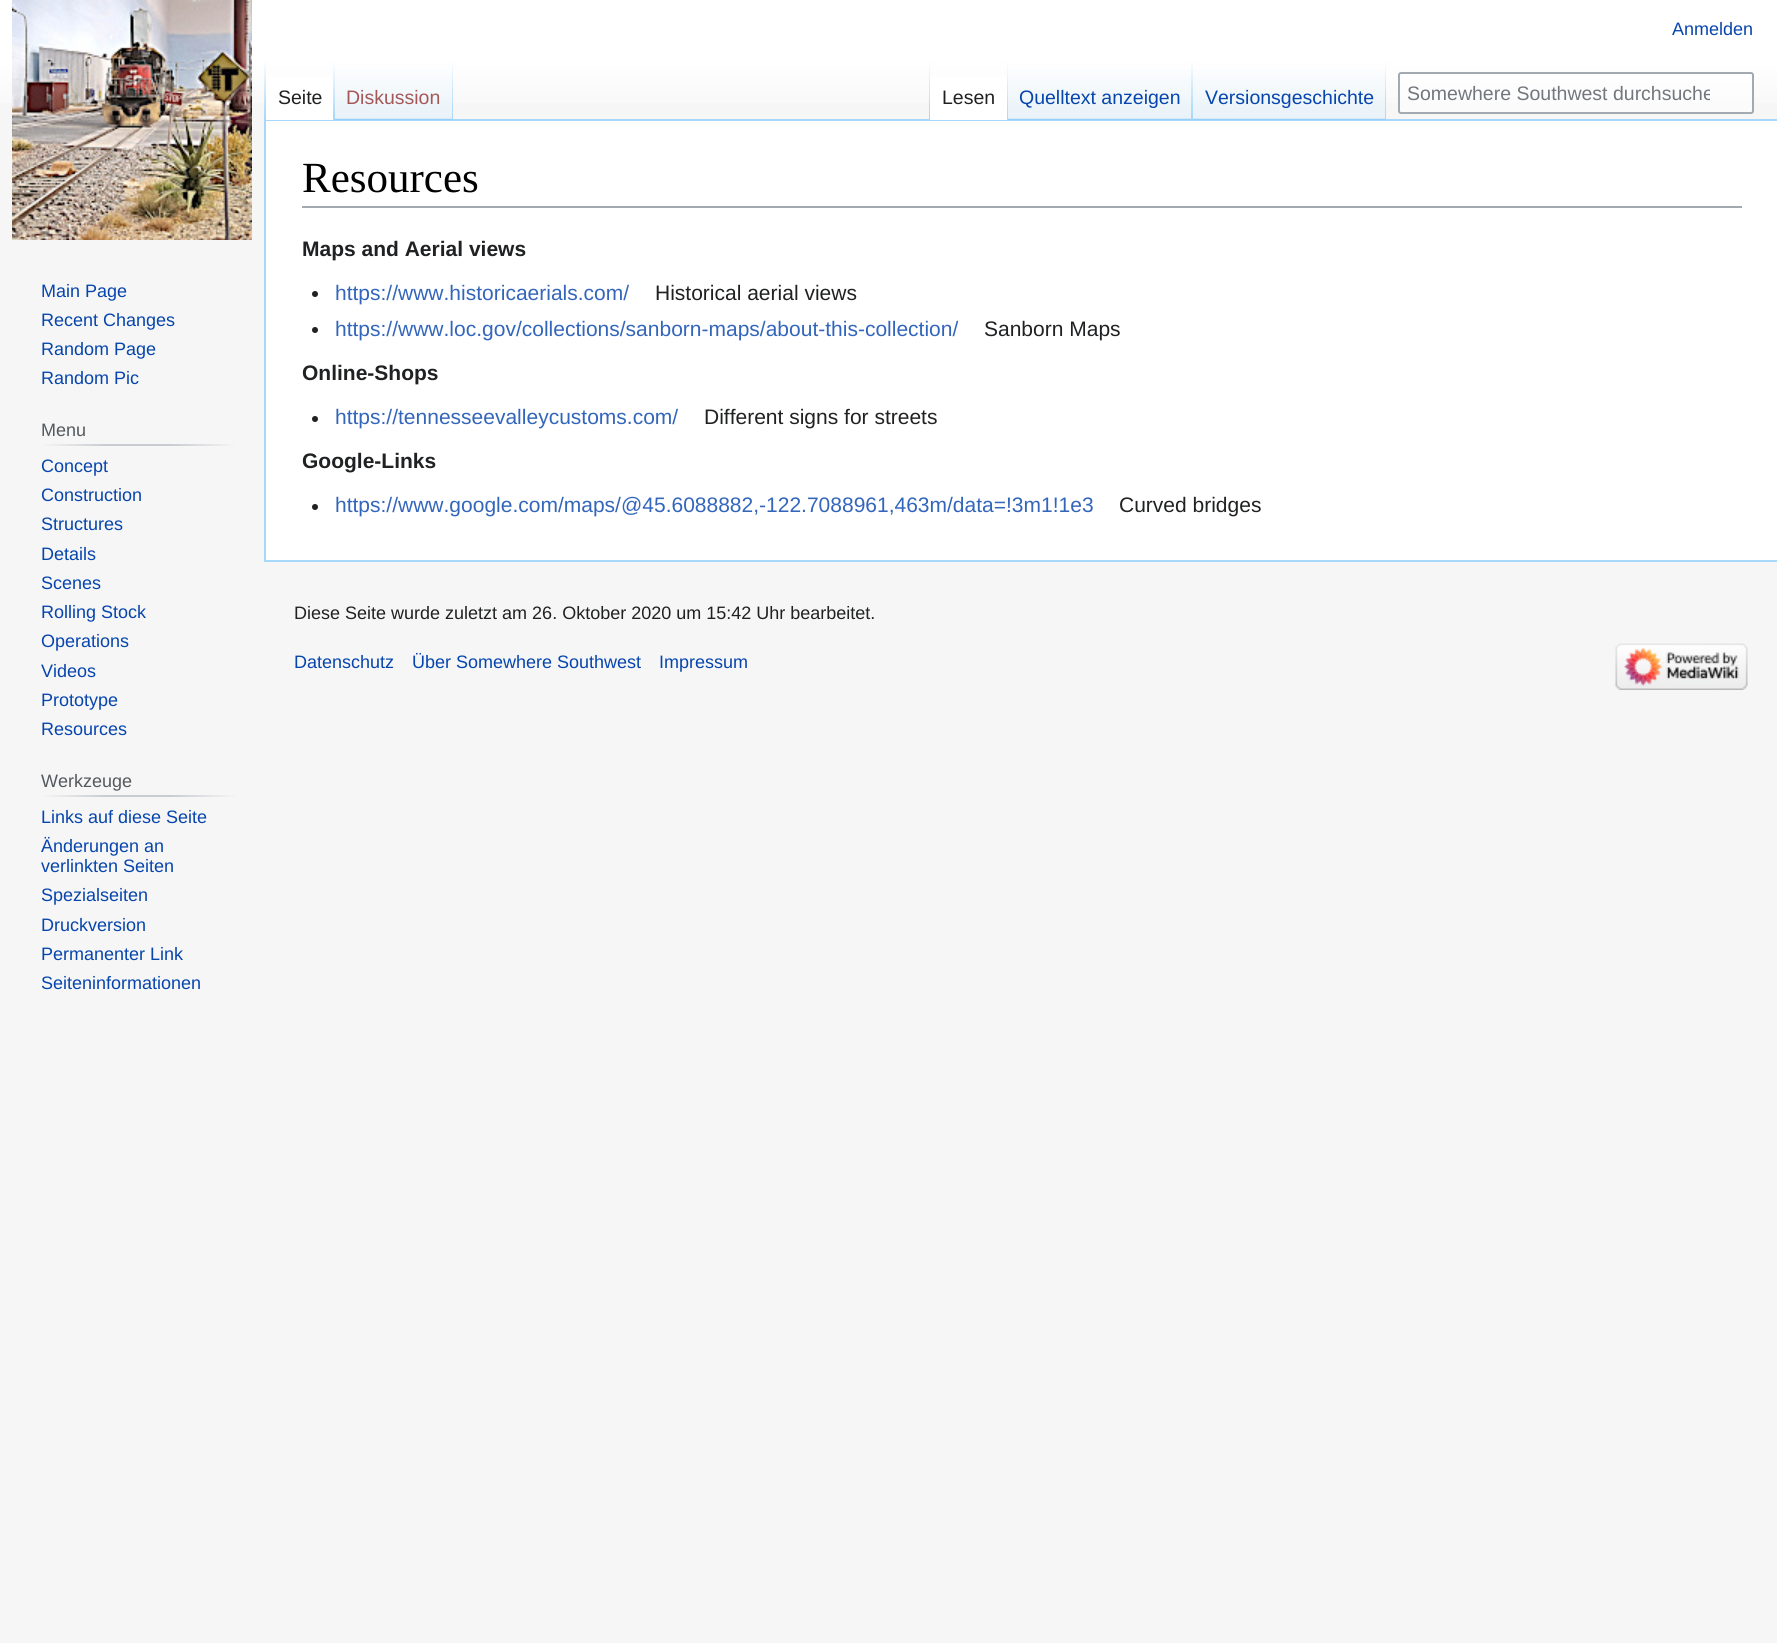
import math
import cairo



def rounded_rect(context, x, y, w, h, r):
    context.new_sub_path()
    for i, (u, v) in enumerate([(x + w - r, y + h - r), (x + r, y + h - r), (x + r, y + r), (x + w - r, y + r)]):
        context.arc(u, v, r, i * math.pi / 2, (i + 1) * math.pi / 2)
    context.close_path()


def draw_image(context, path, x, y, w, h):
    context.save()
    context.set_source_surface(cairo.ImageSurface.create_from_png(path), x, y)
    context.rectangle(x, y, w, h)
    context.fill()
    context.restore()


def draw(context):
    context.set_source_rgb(246 / 255, 246 / 255, 246 / 255)
    context.paint()
    gradient = cairo.LinearGradient(889, 0, 889, 120)
    gradient.add_color_stop_rgba(0.5, 1, 1, 1, 1)
    gradient.add_color_stop_rgba(1, 246 / 255, 246 / 255, 246 / 255, 1)
    context.set_source(gradient)
    context.rectangle(0, 0, 1777, 103)
    context.fill()
    context.set_source_rgb(167 / 255, 215 / 255, 249 / 255)
    context.rectangle(264, 119, 1513, 2)
    context.fill()
    context.rectangle(264, 560, 1513, 2)
    context.fill()
    context.rectangle(264, 119, 2, 442)
    context.fill()
    gradient = cairo.LinearGradient(265, 60, 265, 120)
    gradient.add_color_stop_rgba(0, 167 / 255, 215 / 255, 249 / 255, 0)
    gradient.add_color_stop_rgba(1, 167 / 255, 215 / 255, 249 / 255, 1)
    context.set_source(gradient)
    context.rectangle(264, 60, 2, 60)
    context.fill()
    context.set_source_rgb(1, 1, 1)
    context.rectangle(266, 77, 67, 43)
    context.fill()
    gradient = cairo.LinearGradient(334, 60, 334, 120)
    gradient.add_color_stop_rgba(0, 1, 1, 1, 1)
    gradient.add_color_stop_rgba(1, 167 / 255, 215 / 255, 249 / 255, 1)
    context.set_source(gradient)
    context.rectangle(333, 60, 2, 60)
    context.fill()
    gradient = cairo.LinearGradient(394, 120, 394, 60)
    gradient.add_color_stop_rgba(0, 119 / 255, 193 / 255, 246 / 255, 1)
    gradient.add_color_stop_rgba(0.03, 232 / 255, 242 / 255, 248 / 255, 1)
    gradient.add_color_stop_rgba(1, 1, 1, 1, 1)
    context.set_source(gradient)
    context.rectangle(335, 69, 118, 51)
    context.fill()
    gradient = cairo.LinearGradient(452, 60, 452, 120)
    gradient.add_color_stop_rgba(0, 167 / 255, 215 / 255, 249 / 255, 0)
    gradient.add_color_stop_rgba(1, 167 / 255, 215 / 255, 249 / 255, 1)
    context.set_source(gradient)
    context.rectangle(452, 60, 1, 60)
    context.fill()
    gradient = cairo.LinearGradient(929, 60, 929, 120)
    gradient.add_color_stop_rgba(0, 167 / 255, 215 / 255, 249 / 255, 0)
    gradient.add_color_stop_rgba(1, 167 / 255, 215 / 255, 249 / 255, 1)
    context.set_source(gradient)
    context.rectangle(929, 60, 1, 60)
    context.fill()
    context.set_source_rgb(1, 1, 1)
    context.rectangle(930, 77, 77, 43)
    context.fill()
    gradient = cairo.LinearGradient(1007, 60, 1007, 120)
    gradient.add_color_stop_rgba(0, 1, 1, 1, 1)
    gradient.add_color_stop_rgba(1, 167 / 255, 215 / 255, 249 / 255, 1)
    context.set_source(gradient)
    context.rectangle(1007, 60, 1, 60)
    context.fill()
    gradient = cairo.LinearGradient(1100, 120, 1100, 60)
    gradient.add_color_stop_rgba(0, 119 / 255, 193 / 255, 246 / 255, 1)
    gradient.add_color_stop_rgba(0.03, 232 / 255, 242 / 255, 248 / 255, 1)
    gradient.add_color_stop_rgba(1, 1, 1, 1, 1)
    context.set_source(gradient)
    context.rectangle(1008, 69, 185, 51)
    context.fill()
    gradient = cairo.LinearGradient(1192, 60, 1192, 120)
    gradient.add_color_stop_rgba(0, 167 / 255, 215 / 255, 249 / 255, 0)
    gradient.add_color_stop_rgba(1, 167 / 255, 215 / 255, 249 / 255, 1)
    context.set_source(gradient)
    context.rectangle(1191, 60, 2, 60)
    context.fill()
    gradient = cairo.LinearGradient(1289, 120, 1289, 60)
    gradient.add_color_stop_rgba(0, 119 / 255, 193 / 255, 246 / 255, 1)
    gradient.add_color_stop_rgba(0.03, 232 / 255, 242 / 255, 248 / 255, 1)
    gradient.add_color_stop_rgba(1, 1, 1, 1, 1)
    context.set_source(gradient)
    context.rectangle(1193, 69, 193, 51)
    context.fill()
    gradient = cairo.LinearGradient(1385, 60, 1385, 120)
    gradient.add_color_stop_rgba(0, 167 / 255, 215 / 255, 249 / 255, 0)
    gradient.add_color_stop_rgba(1, 167 / 255, 215 / 255, 249 / 255, 1)
    context.set_source(gradient)
    context.rectangle(1385, 60, 1, 60)
    context.fill()
    context.set_source_rgba(1, 1, 1, 0.5)
    rounded_rect(context, 1399, 73, 354, 40, 2)
    context.fill_preserve()
    context.set_source_rgb(162 / 255, 169 / 255, 177 / 255)
    context.stroke()
    draw_image(context, "images/1.png", 12, 0, 240, 240)
    gradient = cairo.LinearGradient(41, 445, 237, 445)
    gradient.add_color_stop_rgba(0, 246 / 255, 246 / 255, 246 / 255, 1)
    gradient.add_color_stop_rgba(0.33, 200 / 255, 204 / 255, 209 / 255, 1)
    gradient.add_color_stop_rgba(0.66, 200 / 255, 204 / 255, 209 / 255, 1)
    gradient.add_color_stop_rgba(1, 246 / 255, 246 / 255, 246 / 255, 1)
    context.set_source(gradient)
    context.rectangle(41, 444, 196, 2)
    context.fill()
    gradient = cairo.LinearGradient(41, 796, 237, 796)
    gradient.add_color_stop_rgba(0, 246 / 255, 246 / 255, 246 / 255, 1)
    gradient.add_color_stop_rgba(0.33, 200 / 255, 204 / 255, 209 / 255, 1)
    gradient.add_color_stop_rgba(0.66, 200 / 255, 204 / 255, 209 / 255, 1)
    gradient.add_color_stop_rgba(1, 246 / 255, 246 / 255, 246 / 255, 1)
    context.set_source(gradient)
    context.rectangle(41, 795, 196, 2)
    context.fill()
    context.set_source_rgb(1, 1, 1)
    context.rectangle(266, 121, 1511, 439)
    context.fill()
    context.set_source_rgb(162 / 255, 169 / 255, 177 / 255)
    context.rectangle(302, 206, 1440, 2)
    context.fill()
    context.set_source_rgb(32 / 255, 33 / 255, 34 / 255)
    context.arc(315, 294, 3, 0, 2 * math.pi)
    context.fill()
    context.arc(315, 330, 3, 0, 2 * math.pi)
    context.fill()
    context.arc(315, 419, 3, 0, 2 * math.pi)
    context.fill()
    context.arc(315, 507, 3, 0, 2 * math.pi)
    context.fill()
    draw_image(context, "images/2.png", 1615, 643, 133, 47)
    context.select_font_face("Liberation Sans")
    context.set_font_size(18)
    context.set_source_rgb(6 / 255, 69 / 255, 173 / 255)
    context.move_to(1672, 35)
    context.show_text("Anmelden")
    context.set_font_size(19.5)
    context.set_source_rgb(32 / 255, 33 / 255, 34 / 255)
    context.move_to(278, 104)
    context.show_text("Seite")
    context.set_source_rgb(165 / 255, 88 / 255, 88 / 255)
    context.move_to(346, 104)
    context.show_text("Diskussion")
    context.set_source_rgb(32 / 255, 33 / 255, 34 / 255)
    context.move_to(942, 104)
    context.show_text("Lesen")
    context.set_source_rgb(6 / 255, 69 / 255, 173 / 255)
    context.move_to(1019, 104)
    context.show_text("Quelltext anzeigen")
    context.move_to(1205, 104)
    context.show_text("Versionsgeschichte")
    context.save()
    context.rectangle(1407, 83, 303, 22)
    context.clip()
    context.set_source_rgb(114 / 255, 119 / 255, 125 / 255)
    context.move_to(1407, 100)
    context.show_text("Somewhere Southwest durchsuche")
    context.restore()
    context.set_font_size(18)
    context.move_to(41, 297)
    context.show_text("Main Page")
    context.move_to(41, 326)
    context.show_text("Recent Changes")
    context.move_to(41, 355)
    context.show_text("Random Page")
    context.move_to(41, 384)
    context.show_text("Random Pic")
    context.set_source_rgb(84 / 255, 89 / 255, 93 / 255)
    context.move_to(41, 436)
    context.show_text("Menu")
    context.set_source_rgb(6 / 255, 69 / 255, 173 / 255)
    context.move_to(41, 472)
    context.show_text("Concept")
    context.move_to(41, 501)
    context.show_text("Construction")
    context.move_to(41, 530)
    context.show_text("Structures")
    context.move_to(41, 560)
    context.show_text("Details")
    context.move_to(41, 589)
    context.show_text("Scenes")
    context.move_to(41, 618)
    context.show_text("Rolling Stock")
    context.move_to(41, 647)
    context.show_text("Operations")
    context.move_to(41, 677)
    context.show_text("Videos")
    context.move_to(41, 706)
    context.show_text("Prototype")
    context.move_to(41, 735)
    context.show_text("Resources")
    context.set_source_rgb(84 / 255, 89 / 255, 93 / 255)
    context.move_to(41, 787)
    context.show_text("Werkzeuge")
    context.set_source_rgb(6 / 255, 69 / 255, 173 / 255)
    context.move_to(41, 823)
    context.show_text("Links auf diese Seite")
    context.move_to(41, 852)
    context.show_text("Änderungen an")
    context.move_to(41, 872)
    context.show_text("verlinkten Seiten")
    context.move_to(41, 901)
    context.show_text("Spezialseiten")
    context.move_to(41, 931)
    context.show_text("Druckversion")
    context.move_to(41, 960)
    context.show_text("Permanenter Link")
    context.move_to(41, 989)
    context.show_text("Seiteninformationen")
    context.select_font_face("Liberation Serif")
    context.set_font_size(43)
    context.set_source_rgb(0, 0, 0)
    context.move_to(302, 192)
    context.show_text("Resources")
    context.select_font_face("Liberation Sans", cairo.FontSlant.NORMAL, cairo.FontWeight.BOLD)
    context.set_font_size(21)
    context.set_source_rgb(32 / 255, 33 / 255, 34 / 255)
    context.move_to(302, 256)
    context.show_text("Maps and Aerial views")
    context.select_font_face("Liberation Sans")
    context.set_source_rgb(51 / 255, 102 / 255, 187 / 255)
    context.move_to(335, 300)
    context.show_text("https://www.historicaerials.com/")
    context.set_source_rgb(32 / 255, 33 / 255, 34 / 255)
    context.move_to(655, 300)
    context.show_text("Historical aerial views")
    context.set_source_rgb(51 / 255, 102 / 255, 187 / 255)
    context.move_to(335, 336)
    context.show_text("https://www.loc.gov/collections/sanborn-maps/about-this-collection/")
    context.set_source_rgb(32 / 255, 33 / 255, 34 / 255)
    context.move_to(984, 336)
    context.show_text("Sanborn Maps")
    context.select_font_face("Liberation Sans", cairo.FontSlant.NORMAL, cairo.FontWeight.BOLD)
    context.move_to(302, 380)
    context.show_text("Online-Shops")
    context.select_font_face("Liberation Sans")
    context.set_source_rgb(51 / 255, 102 / 255, 187 / 255)
    context.move_to(335, 424)
    context.show_text("https://tennesseevalleycustoms.com/")
    context.set_source_rgb(32 / 255, 33 / 255, 34 / 255)
    context.move_to(704, 424)
    context.show_text("Different signs for streets")
    context.select_font_face("Liberation Sans", cairo.FontSlant.NORMAL, cairo.FontWeight.BOLD)
    context.move_to(302, 468)
    context.show_text("Google-Links")
    context.select_font_face("Liberation Sans")
    context.set_source_rgb(51 / 255, 102 / 255, 187 / 255)
    context.move_to(335, 512)
    context.show_text("https://www.google.com/maps/@45.6088882,-122.7088961,463m/data=!3m1!1e3")
    context.set_source_rgb(32 / 255, 33 / 255, 34 / 255)
    context.move_to(1119, 512)
    context.show_text("Curved bridges")
    context.set_font_size(18)
    context.move_to(294, 619)
    context.show_text("Diese Seite wurde zuletzt am 26. Oktober 2020 um 15:42 Uhr bearbeitet.")
    context.set_source_rgb(6 / 255, 69 / 255, 173 / 255)
    context.move_to(294, 668)
    context.show_text("Datenschutz")
    context.move_to(412, 668)
    context.show_text("Über Somewhere Southwest")
    context.move_to(659, 668)
    context.show_text("Impressum")


surface = cairo.ImageSurface(cairo.Format.RGB24, 1777, 1643)
context = cairo.Context(surface)
options = cairo.FontOptions()
options.set_hint_metrics(cairo.HintMetrics.OFF)
options.set_hint_style(cairo.HintStyle.NONE)
context.set_font_options(options)
context.set_miter_limit(4)
draw(context)
surface.write_to_png("out.png")
